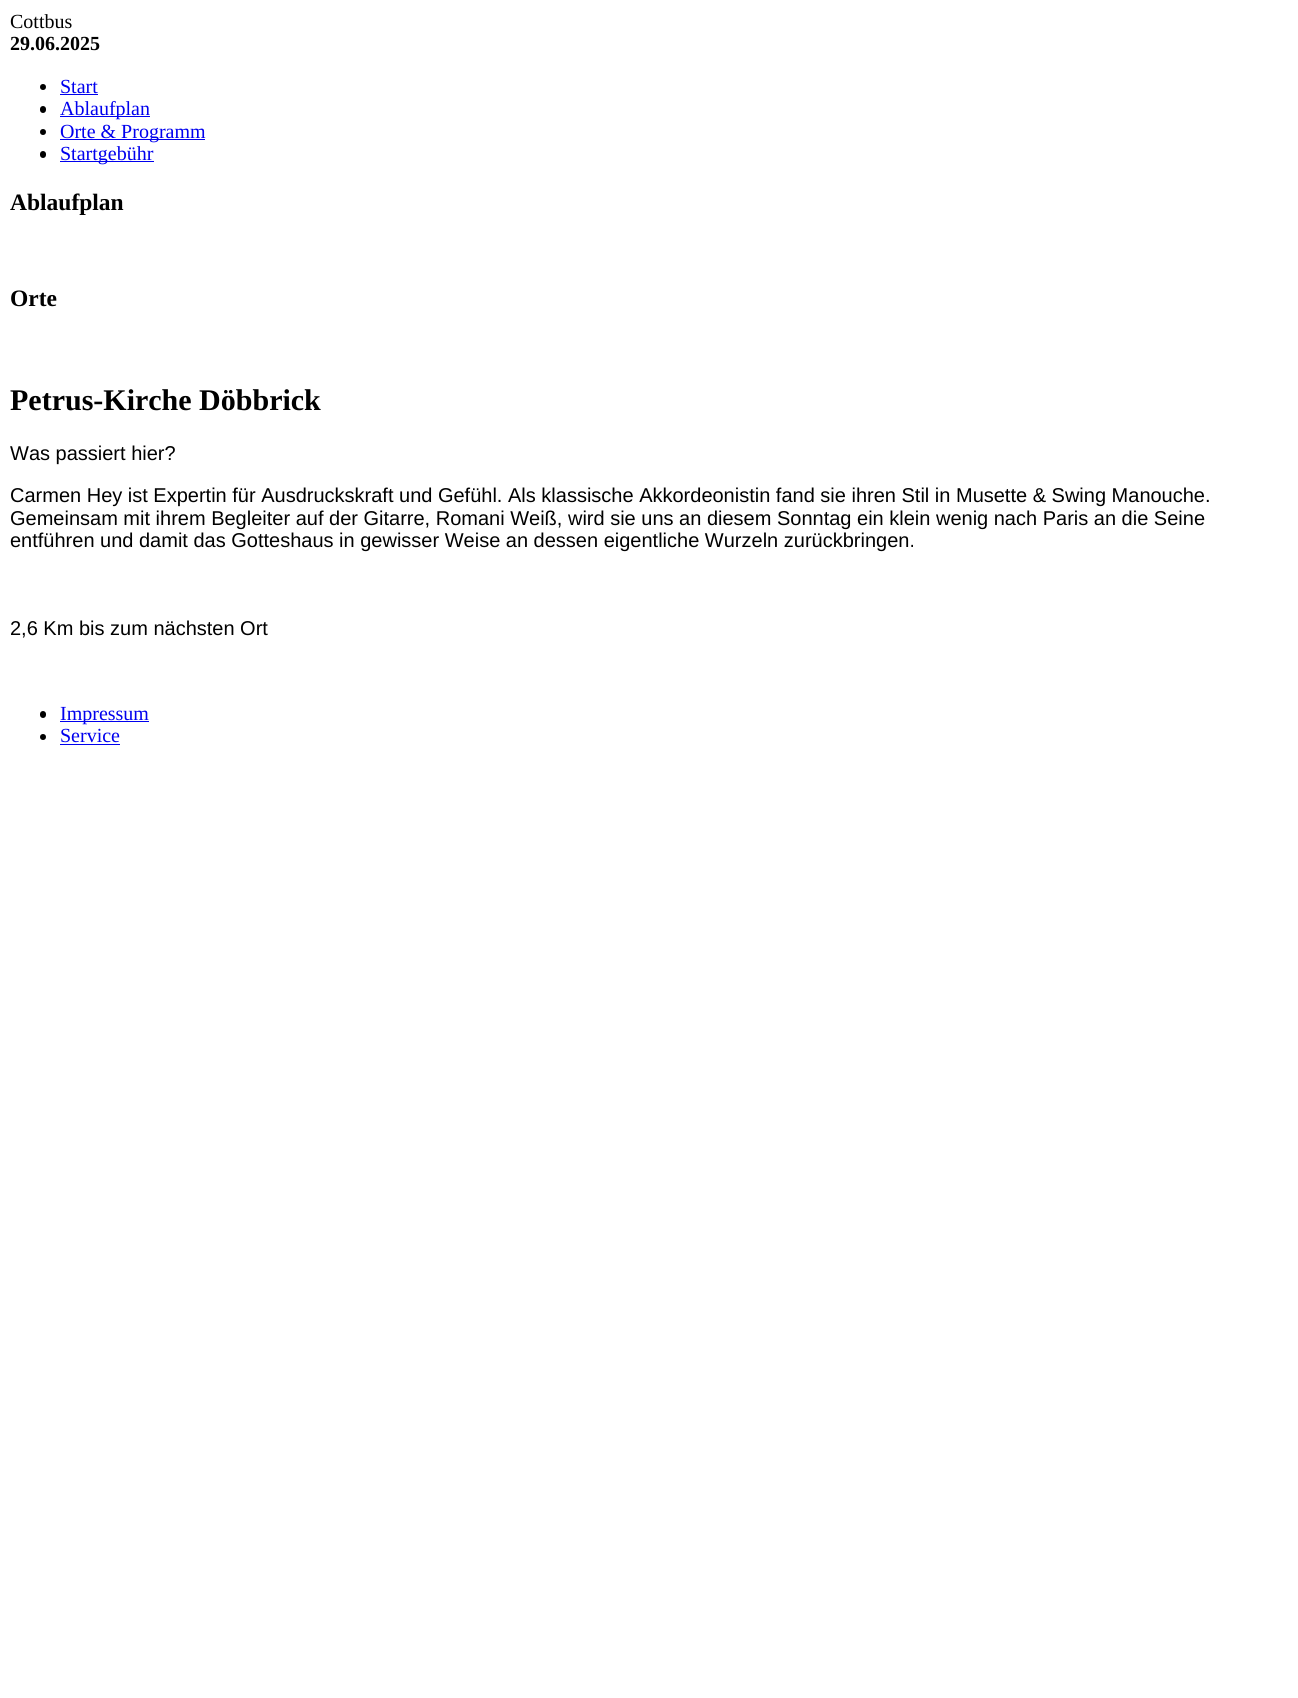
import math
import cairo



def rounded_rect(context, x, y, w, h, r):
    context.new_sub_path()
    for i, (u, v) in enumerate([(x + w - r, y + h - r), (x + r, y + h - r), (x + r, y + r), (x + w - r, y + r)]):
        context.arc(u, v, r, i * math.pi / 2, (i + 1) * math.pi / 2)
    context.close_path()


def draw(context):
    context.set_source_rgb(1, 1, 1)
    context.paint()
    context.set_source_rgb(0, 0, 0)
    context.arc(43, 87, 3, 0, 2 * math.pi)
    context.fill()
    context.set_source_rgb(0, 0, 238 / 255)
    context.rectangle(60, 94, 38, 1)
    context.fill()
    context.set_source_rgb(0, 0, 0)
    rounded_rect(context, 40, 106, 6, 7, 3)
    context.fill()
    context.set_source_rgb(0, 0, 238 / 255)
    context.rectangle(60, 116, 90, 1)
    context.fill()
    context.set_source_rgb(0, 0, 0)
    context.arc(43, 132, 3, 0, 2 * math.pi)
    context.fill()
    context.set_source_rgb(0, 0, 238 / 255)
    context.rectangle(60, 139, 145, 1)
    context.fill()
    context.set_source_rgb(0, 0, 0)
    rounded_rect(context, 40, 151, 6, 7, 3)
    context.fill()
    context.set_source_rgb(0, 0, 238 / 255)
    context.rectangle(60, 161, 94, 1)
    context.fill()
    context.set_source_rgb(0, 0, 0)
    rounded_rect(context, 40, 711, 6, 7, 3)
    context.fill()
    context.set_source_rgb(0, 0, 238 / 255)
    context.rectangle(60, 721, 89, 1)
    context.fill()
    context.set_source_rgb(0, 0, 0)
    context.arc(43, 737, 3, 0, 2 * math.pi)
    context.fill()
    context.set_source_rgb(0, 0, 238 / 255)
    context.rectangle(60, 744, 60, 1)
    context.fill()
    context.select_font_face("Liberation Serif")
    context.set_font_size(20)
    context.set_source_rgb(0, 0, 0)
    context.move_to(10, 28)
    context.show_text("Cottbus")
    context.select_font_face("Liberation Serif", cairo.FontSlant.NORMAL, cairo.FontWeight.BOLD)
    context.move_to(10, 50)
    context.show_text("29.06.2025")
    context.select_font_face("Liberation Serif")
    context.set_source_rgb(0, 0, 238 / 255)
    context.move_to(60, 93)
    context.show_text("Start")
    context.move_to(60, 115)
    context.show_text("Ablaufplan")
    context.move_to(60, 138)
    context.show_text("Orte & Programm")
    context.move_to(60, 160)
    context.show_text("Startgebühr")
    context.select_font_face("Liberation Serif", cairo.FontSlant.NORMAL, cairo.FontWeight.BOLD)
    context.set_font_size(23.5)
    context.set_source_rgb(0, 0, 0)
    context.move_to(10, 210)
    context.show_text("Ablaufplan")
    context.move_to(10, 306)
    context.show_text("Orte")
    context.set_font_size(30)
    context.move_to(10, 410)
    context.show_text("Petrus-Kirche Döbbrick")
    context.select_font_face("Liberation Sans")
    context.set_font_size(20)
    context.move_to(10, 460)
    context.show_text("Was passiert hier?")
    context.move_to(10, 502)
    context.show_text("Carmen Hey ist Expertin für Ausdruckskraft und Gefühl. Als klassische Akkordeonistin fand sie ihren Stil in Musette & Swing Manouche.")
    context.move_to(10, 525)
    context.show_text("Gemeinsam mit ihrem Begleiter auf der Gitarre, Romani Weiß, wird sie uns an diesem Sonntag ein klein wenig nach Paris an die Seine")
    context.move_to(10, 547)
    context.show_text("entführen und damit das Gotteshaus in gewisser Weise an dessen eigentliche Wurzeln zurückbringen.")
    context.move_to(10, 635)
    context.show_text("2,6 Km bis zum nächsten Ort")
    context.select_font_face("Liberation Serif")
    context.set_source_rgb(0, 0, 238 / 255)
    context.move_to(60, 720)
    context.show_text("Impressum")
    context.move_to(60, 742)
    context.show_text("Service")


surface = cairo.ImageSurface(cairo.Format.RGB24, 1298, 1698)
context = cairo.Context(surface)
options = cairo.FontOptions()
options.set_hint_metrics(cairo.HintMetrics.OFF)
options.set_hint_style(cairo.HintStyle.NONE)
context.set_font_options(options)
context.set_miter_limit(4)
draw(context)
surface.write_to_png("out.png")
